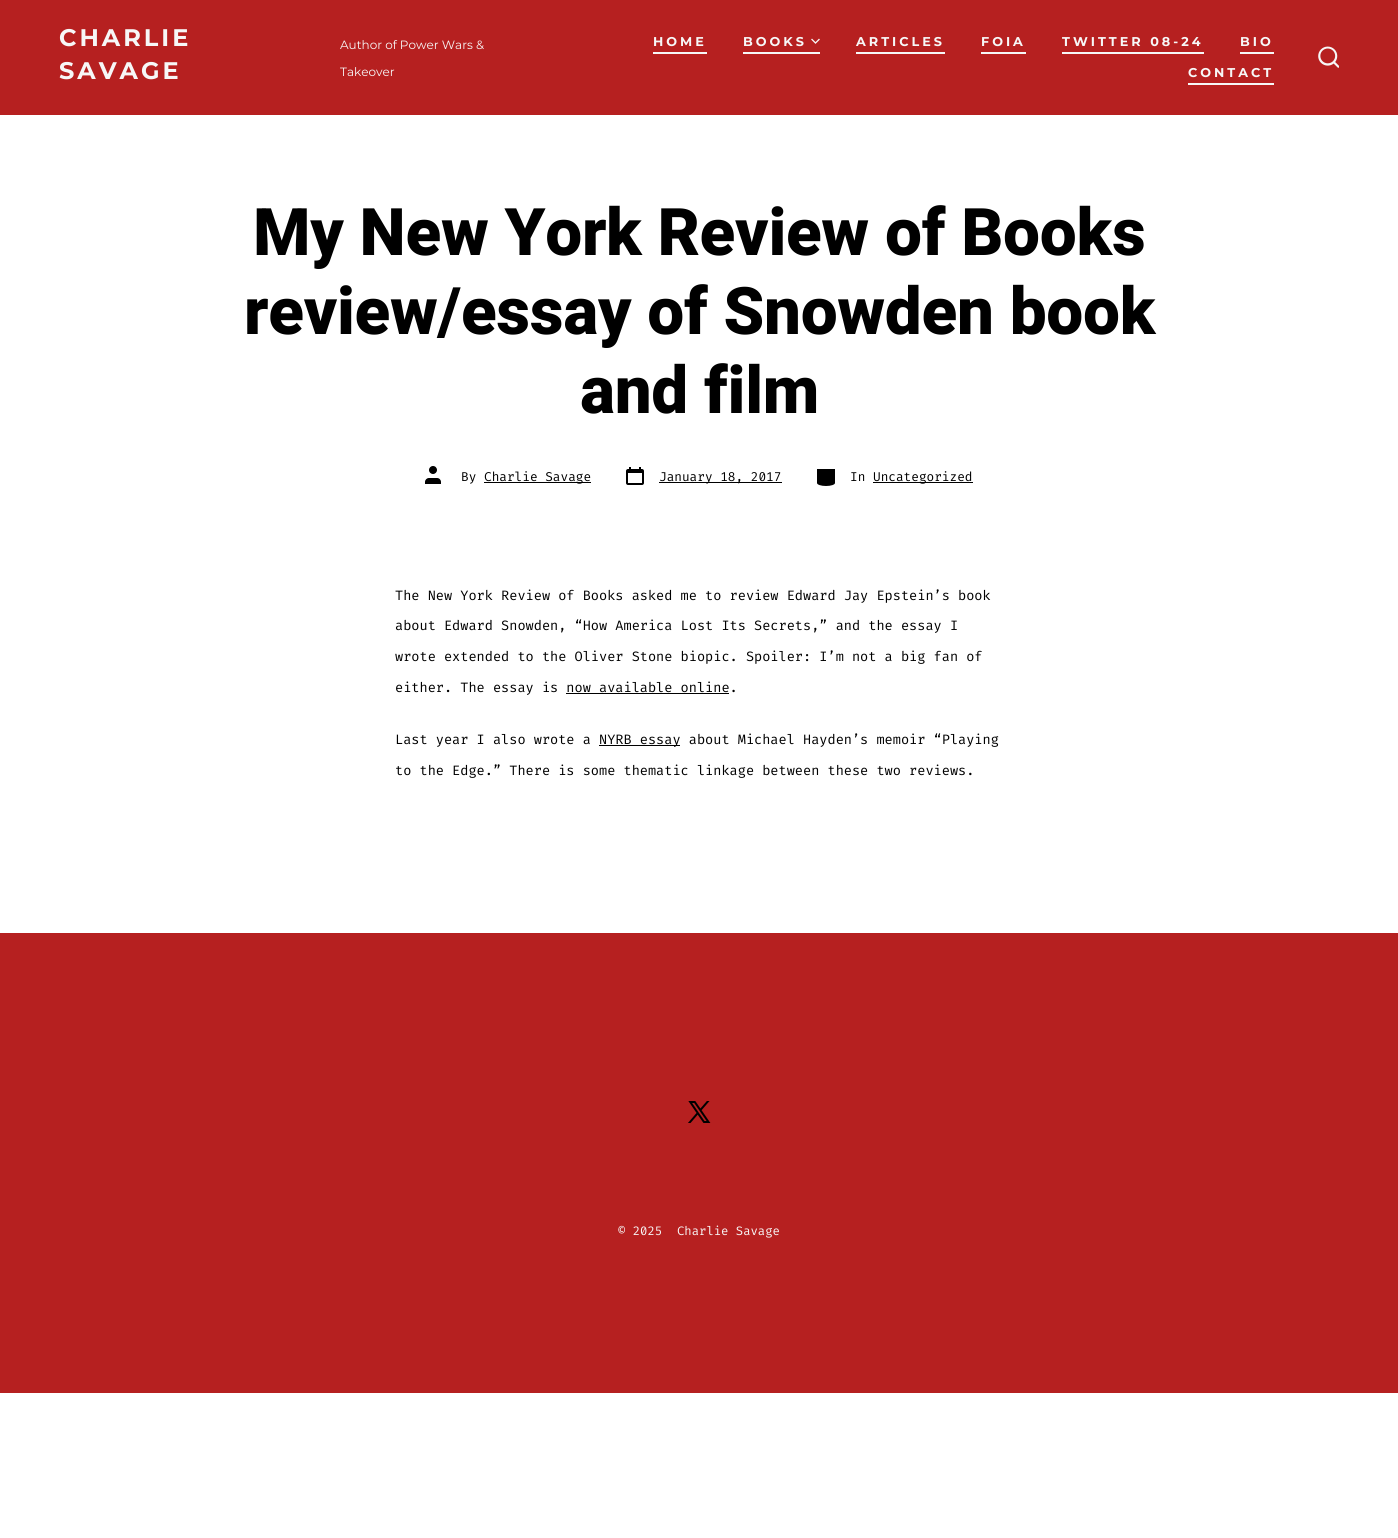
import math
import cairo



def draw_spaced(context, x, y, s, letter, word):
    context.move_to(x, y)
    for ch in s:
        context.show_text(ch)
        context.rel_move_to(letter + word * (ch == ' '), 0)


def draw_image(context, path, x, y, w, h):
    context.save()
    context.set_source_surface(cairo.ImageSurface.create_from_png(path), x, y)
    context.rectangle(x, y, w, h)
    context.fill()
    context.restore()


def draw(context):
    context.set_source_rgb(1, 1, 1)
    context.paint()
    context.set_source_rgb(182 / 255, 32 / 255, 32 / 255)
    context.rectangle(0, 0, 1398, 115)
    context.fill()
    context.set_source_rgb(247 / 255, 247 / 255, 247 / 255)
    context.rectangle(653, 52, 54, 2)
    context.fill()
    context.new_path()
    context.move_to(812, 39.5)
    context.line_to(815.5, 43)
    context.line_to(819, 39.5)
    context.set_line_width(1.3)
    context.set_line_cap(cairo.LineCap.SQUARE)
    context.stroke()
    context.rectangle(743, 52, 77, 2)
    context.fill()
    context.rectangle(856, 52, 89, 2)
    context.fill()
    context.rectangle(981, 52, 45, 2)
    context.fill()
    context.rectangle(1062, 52, 142, 2)
    context.fill()
    context.rectangle(1240, 52, 34, 2)
    context.fill()
    context.rectangle(1188, 83, 86, 2)
    context.fill()
    draw_image(context, "images/1.png", 1318, 46, 21, 22)
    draw_image(context, "images/2.png", 425, 466, 16, 18)
    context.set_source_rgb(0, 0, 0)
    context.rectangle(484, 482, 107, 1)
    context.fill()
    draw_image(context, "images/3.png", 626, 467, 18, 18)
    context.rectangle(659, 482, 123, 1)
    context.fill()
    draw_image(context, "images/4.png", 817, 469, 18, 17)
    context.rectangle(873, 482, 100, 1)
    context.fill()
    context.rectangle(566, 693, 163, 1)
    context.fill()
    context.rectangle(599, 745, 81, 1)
    context.fill()
    context.set_source_rgb(182 / 255, 32 / 255, 32 / 255)
    context.rectangle(0, 933, 1398, 460)
    context.fill()
    draw_image(context, "images/5.png", 688, 1101, 23, 22)
    context.select_font_face("Montserrat", cairo.FontSlant.NORMAL, cairo.FontWeight.BOLD)
    context.set_font_size(24)
    context.set_source_rgb(247 / 255, 247 / 255, 247 / 255)
    draw_spaced(context, 59, 46, "CHARLIE", 3, 0)
    draw_spaced(context, 59, 79, "SAVAGE", 3, 0)
    context.select_font_face("Montserrat")
    context.set_font_size(12)
    context.move_to(340, 49)
    context.show_text("Author of Power Wars &")
    context.move_to(340, 76)
    context.show_text("Takeover")
    context.select_font_face("Montserrat", cairo.FontSlant.NORMAL, cairo.FontWeight.BOLD)
    context.set_font_size(12.75)
    draw_spaced(context, 653, 46, "HOME", 3, 0)
    draw_spaced(context, 743, 46, "BOOKS", 3, 0)
    draw_spaced(context, 856, 46, "ARTICLES", 3, 0)
    draw_spaced(context, 981, 46, "FOIA", 3, 0)
    draw_spaced(context, 1062, 46, "TWITTER 08-24", 3, 0)
    draw_spaced(context, 1240, 46, "BIO", 3, 0)
    draw_spaced(context, 1188, 77, "CONTACT", 3, 0)
    context.select_font_face("Heebo ExtraBold")
    context.set_font_size(65.6)
    context.set_source_rgb(0, 0, 0)
    draw_spaced(context, 253, 255, "My New York Review of Books", -0.3, 0)
    draw_spaced(context, 244, 334, "review/essay of Snowden book", -0.3, 0)
    draw_spaced(context, 580, 413, "and film", -0.3, 0)
    context.select_font_face("Fira Code")
    context.set_font_size(12.75)
    context.move_to(461, 481)
    context.show_text("By")
    context.move_to(484, 481)
    context.show_text("Charlie Savage")
    context.move_to(659, 481)
    context.show_text("January 18, 2017")
    context.move_to(850, 481)
    context.show_text("In")
    context.move_to(873, 481)
    context.show_text("Uncategorized")
    context.set_font_size(13.6)
    context.move_to(395, 600)
    context.show_text("The New York Review of Books asked me to review Edward Jay Epstein’s book")
    context.move_to(395, 630)
    context.show_text("about Edward Snowden, “How America Lost Its Secrets,” and the essay I")
    context.move_to(395, 661)
    context.show_text("wrote extended to the Oliver Stone biopic. Spoiler: I’m not a big fan of")
    context.move_to(395, 692)
    context.show_text("either. The essay is now available online.")
    context.move_to(395, 744)
    context.show_text("Last year I also wrote a")
    context.move_to(599, 744)
    context.show_text("NYRB essay about Michael Hayden’s memoir “Playing")
    context.move_to(395, 775)
    context.show_text("to the Edge.” There is some thematic linkage between these two reviews.")
    context.set_font_size(12.25)
    context.set_source_rgb(247 / 255, 247 / 255, 247 / 255)
    context.move_to(618, 1235)
    context.show_text("© 2025")
    context.move_to(677, 1235)
    context.show_text("Charlie Savage")


surface = cairo.ImageSurface(cairo.Format.RGB24, 1398, 1538)
context = cairo.Context(surface)
options = cairo.FontOptions()
options.set_hint_metrics(cairo.HintMetrics.OFF)
options.set_hint_style(cairo.HintStyle.NONE)
context.set_font_options(options)
context.set_miter_limit(4)
draw(context)
surface.write_to_png("out.png")
